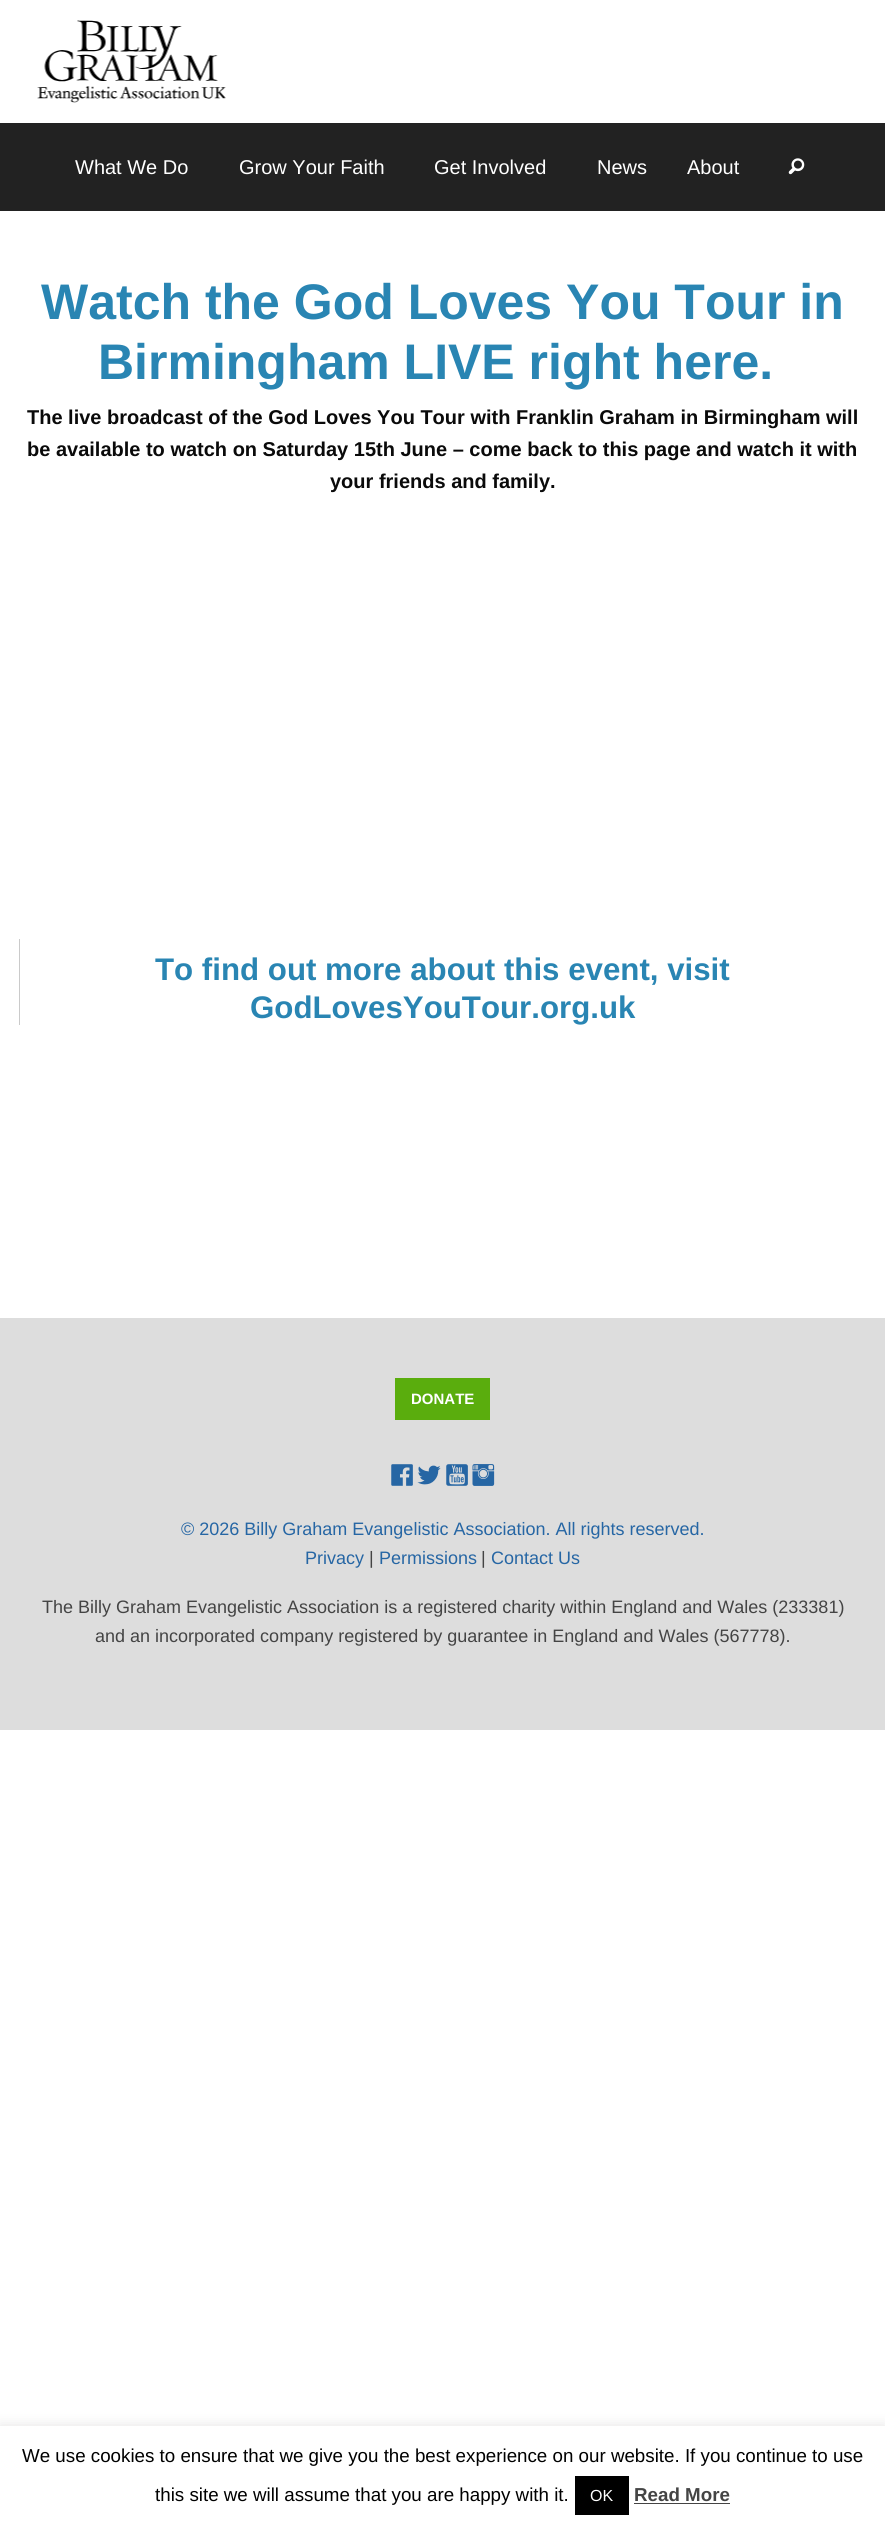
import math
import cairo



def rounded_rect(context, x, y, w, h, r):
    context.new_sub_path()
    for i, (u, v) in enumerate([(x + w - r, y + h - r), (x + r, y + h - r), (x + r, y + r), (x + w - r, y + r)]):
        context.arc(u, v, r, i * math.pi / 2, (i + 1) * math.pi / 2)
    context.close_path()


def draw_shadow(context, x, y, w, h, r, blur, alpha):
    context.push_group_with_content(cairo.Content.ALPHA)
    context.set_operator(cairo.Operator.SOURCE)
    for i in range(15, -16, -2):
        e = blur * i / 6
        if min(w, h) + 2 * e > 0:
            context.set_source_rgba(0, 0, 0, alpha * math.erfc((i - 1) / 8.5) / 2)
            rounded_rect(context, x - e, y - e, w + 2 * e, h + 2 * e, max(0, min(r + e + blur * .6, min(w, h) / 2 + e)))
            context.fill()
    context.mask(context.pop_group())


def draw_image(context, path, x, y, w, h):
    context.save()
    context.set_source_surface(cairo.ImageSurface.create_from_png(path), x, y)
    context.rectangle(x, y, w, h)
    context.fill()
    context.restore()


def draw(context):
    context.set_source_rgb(1, 1, 1)
    context.paint()
    draw_image(context, "images/1.png", 37, 20, 189, 83)
    context.set_source_rgb(34 / 255, 34 / 255, 34 / 255)
    context.rectangle(0, 123, 885, 88)
    context.fill()
    draw_image(context, "images/2.png", 788, 158, 17, 17)
    context.set_source_rgb(202 / 255, 202 / 255, 202 / 255)
    context.rectangle(19, 939, 1, 86)
    context.fill()
    context.set_source_rgb(221 / 255, 221 / 255, 221 / 255)
    context.rectangle(0, 1318, 885, 412)
    context.fill()
    context.set_source_rgb(90 / 255, 173 / 255, 13 / 255)
    context.rectangle(395, 1378, 95, 42)
    context.fill()
    draw_image(context, "images/3.png", 391, 1464, 22, 22)
    draw_image(context, "images/4.png", 417, 1465, 24, 20)
    draw_image(context, "images/5.png", 446, 1464, 22, 22)
    draw_image(context, "images/6.png", 472, 1464, 23, 22)
    context.set_source_rgb(172 / 255, 171 / 255, 171 / 255)
    draw_shadow(context, 0, 2425, 885, 104, 0, 6, 0.3)
    context.set_source_rgb(1, 1, 1)
    context.rectangle(0, 2426, 885, 104)
    context.fill()
    context.set_source_rgb(0, 0, 0)
    context.rectangle(575, 2476, 54, 39)
    context.fill()
    context.set_source_rgb(68 / 255, 68 / 255, 68 / 255)
    context.rectangle(634, 2503, 96, 1)
    context.fill()
    context.select_font_face("Liberation Sans")
    context.set_font_size(20)
    context.set_source_rgb(1, 1, 1)
    context.move_to(75, 174)
    context.show_text("What We Do")
    context.move_to(239, 174)
    context.show_text("Grow Your Faith")
    context.move_to(434, 174)
    context.show_text("Get Involved")
    context.move_to(597, 174)
    context.show_text("News")
    context.move_to(687, 174)
    context.show_text("About")
    context.select_font_face("Liberation Sans", cairo.FontSlant.NORMAL, cairo.FontWeight.BOLD)
    context.set_font_size(50)
    context.set_source_rgb(41 / 255, 133 / 255, 179 / 255)
    context.move_to(41, 319)
    context.show_text("Watch the God Loves You Tour in")
    context.move_to(98, 379)
    context.show_text("Birmingham LIVE right here.")
    context.set_font_size(20)
    context.set_source_rgb(10 / 255, 10 / 255, 10 / 255)
    context.move_to(27, 424)
    context.show_text("The live broadcast of the God Loves You Tour with Franklin Graham in Birmingham will")
    context.move_to(27, 456)
    context.show_text("be available to watch on Saturday 15th June – come back to this page and watch it with")
    context.move_to(330, 488)
    context.show_text("your friends and family.")
    context.set_font_size(31.25)
    context.set_source_rgb(41 / 255, 133 / 255, 179 / 255)
    context.move_to(155, 980)
    context.show_text("To find out more about this event, visit")
    context.move_to(250, 1018)
    context.show_text("GodLovesYouTour.org.uk")
    context.set_font_size(15)
    context.set_source_rgb(1, 1, 1)
    context.move_to(411, 1404)
    context.show_text("DONATE")
    context.select_font_face("Liberation Sans")
    context.set_font_size(18)
    context.set_source_rgb(38 / 255, 102 / 255, 164 / 255)
    context.move_to(181, 1535)
    context.show_text("© 2026 Billy Graham Evangelistic Association. All rights reserved.")
    context.move_to(305, 1564)
    context.show_text("Privacy")
    context.set_source_rgb(68 / 255, 68 / 255, 68 / 255)
    context.move_to(369, 1564)
    context.show_text("|")
    context.set_source_rgb(38 / 255, 102 / 255, 164 / 255)
    context.move_to(379, 1564)
    context.show_text("Permissions")
    context.set_source_rgb(68 / 255, 68 / 255, 68 / 255)
    context.move_to(481, 1564)
    context.show_text("|")
    context.set_source_rgb(38 / 255, 102 / 255, 164 / 255)
    context.move_to(491, 1564)
    context.show_text("Contact Us")
    context.set_source_rgb(68 / 255, 68 / 255, 68 / 255)
    context.move_to(42, 1613)
    context.show_text("The Billy Graham Evangelistic Association is a registered charity within England and Wales (233381)")
    context.move_to(95, 1642)
    context.show_text("and an incorporated company registered by guarantee in England and Wales (567778).")
    context.set_font_size(18.75)
    context.set_source_rgb(0, 0, 0)
    context.move_to(22, 2462)
    context.show_text("We use cookies to ensure that we give you the best experience on our website. If you continue to use")
    context.move_to(155, 2501)
    context.show_text("this site we will assume that you are happy with it.")
    context.set_font_size(16)
    context.set_source_rgb(1, 1, 1)
    context.move_to(590, 2501)
    context.show_text("OK")
    context.select_font_face("Liberation Sans", cairo.FontSlant.NORMAL, cairo.FontWeight.BOLD)
    context.set_font_size(18.75)
    context.set_source_rgb(68 / 255, 68 / 255, 68 / 255)
    context.move_to(634, 2501)
    context.show_text("Read More")


surface = cairo.ImageSurface(cairo.Format.RGB24, 885, 2530)
context = cairo.Context(surface)
options = cairo.FontOptions()
options.set_hint_metrics(cairo.HintMetrics.OFF)
options.set_hint_style(cairo.HintStyle.NONE)
context.set_font_options(options)
context.set_miter_limit(4)
draw(context)
surface.write_to_png("out.png")
